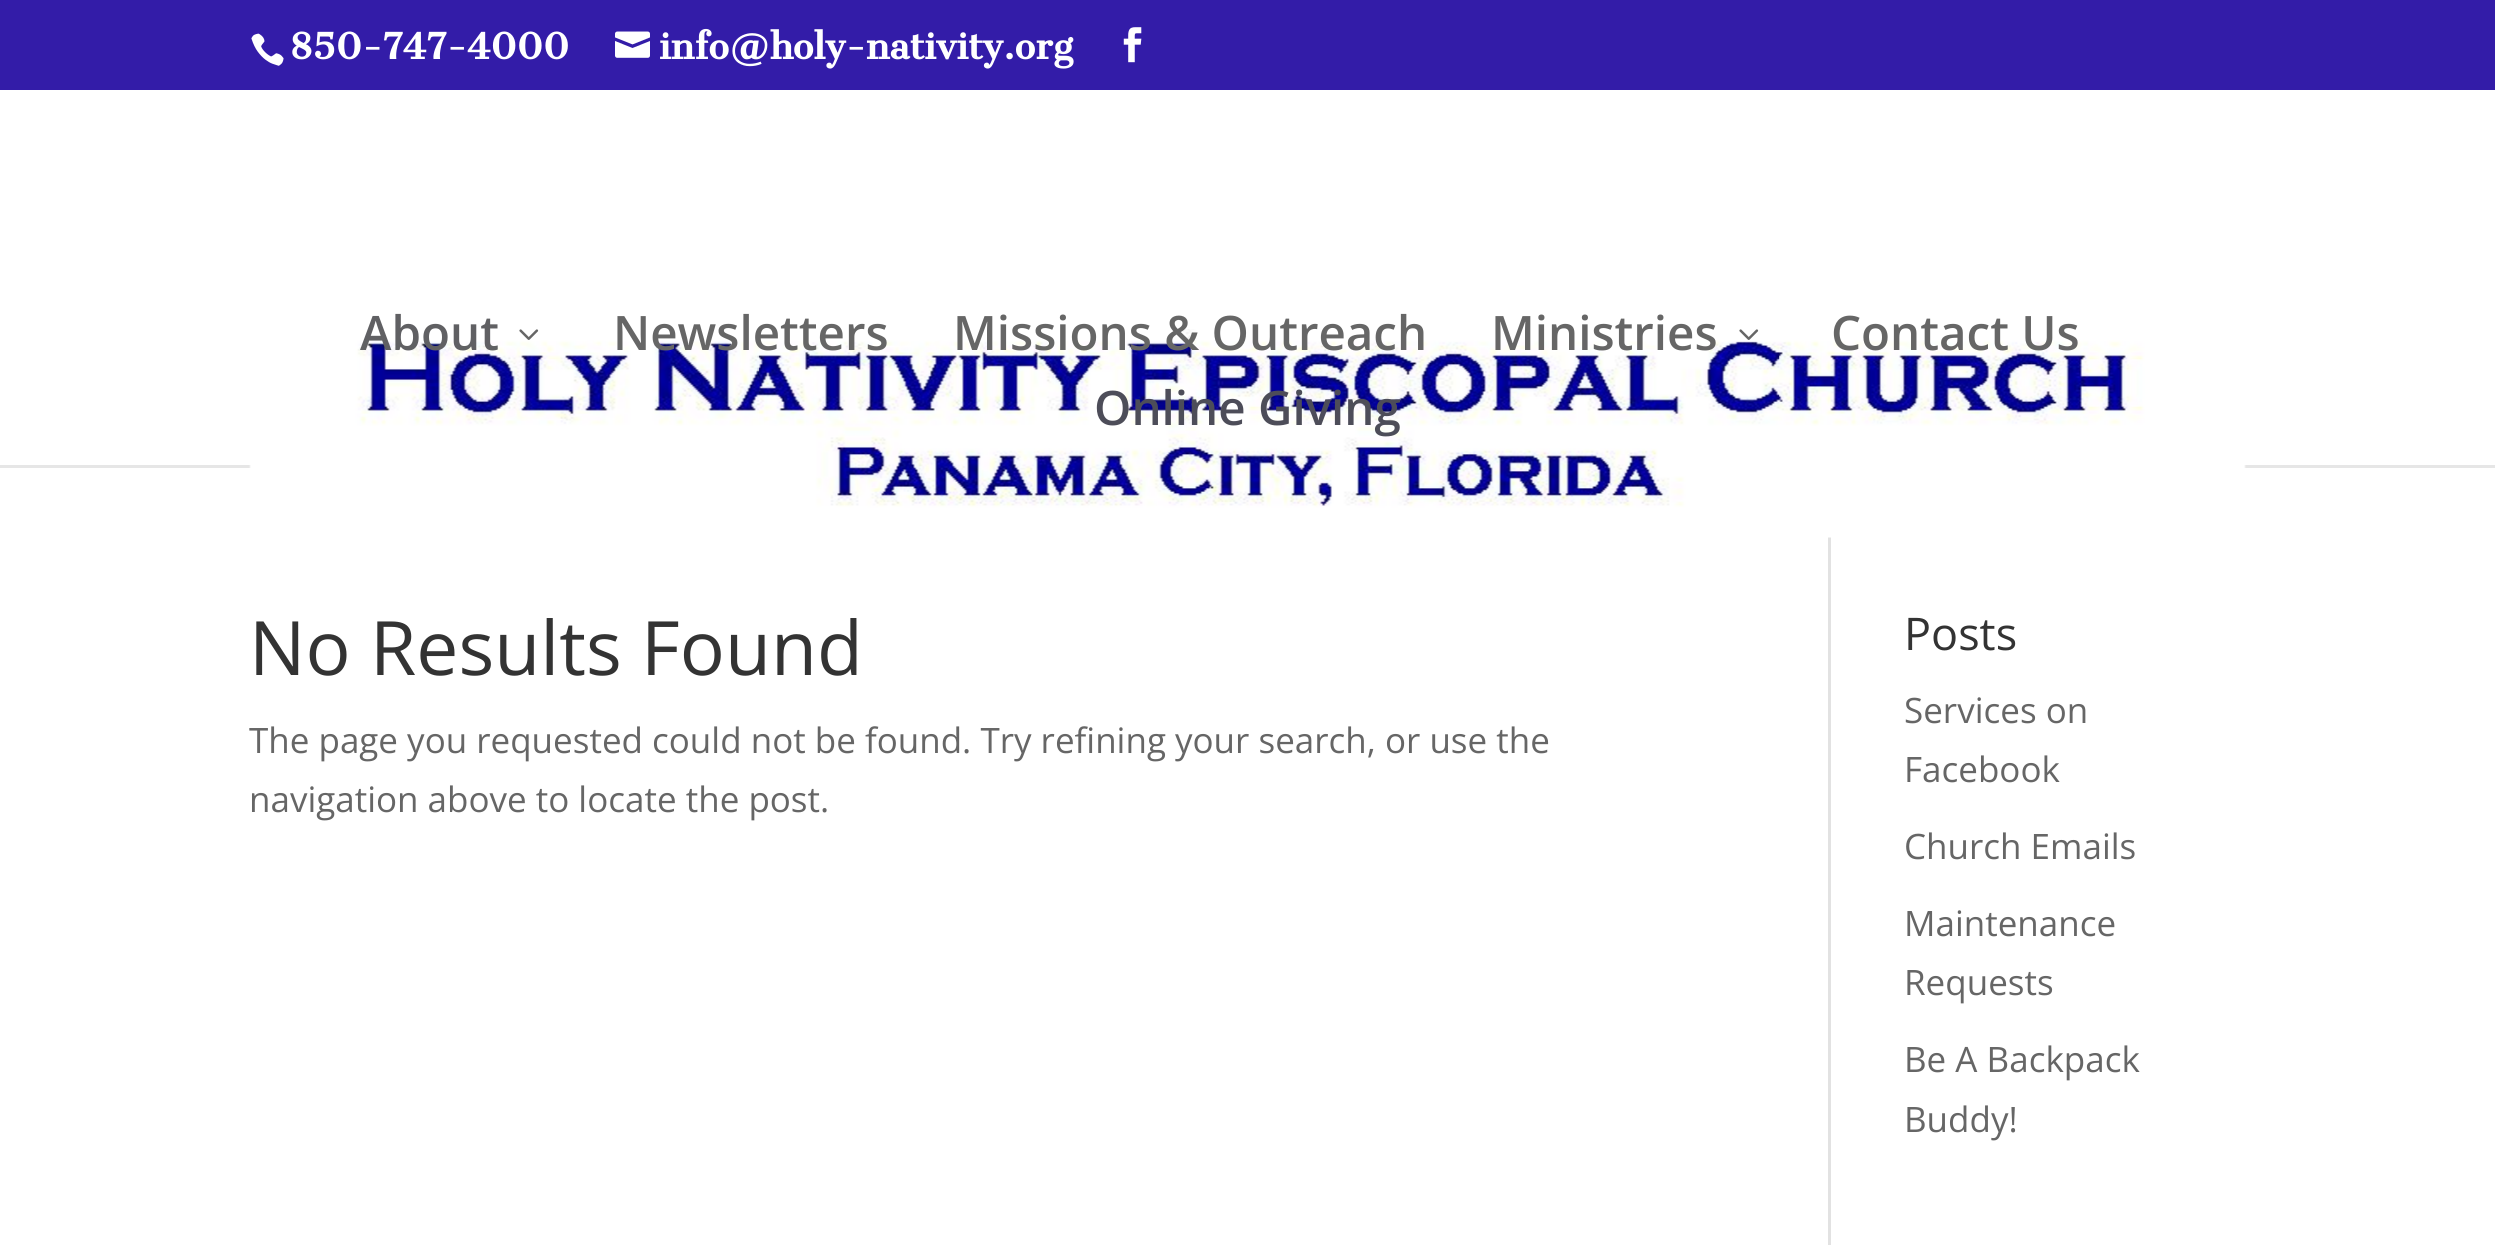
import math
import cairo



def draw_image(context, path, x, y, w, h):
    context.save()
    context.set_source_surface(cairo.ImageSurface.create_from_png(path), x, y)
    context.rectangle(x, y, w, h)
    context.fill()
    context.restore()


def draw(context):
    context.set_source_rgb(1, 1, 1)
    context.paint()
    context.set_source_rgb(230 / 255, 230 / 255, 230 / 255)
    context.rectangle(0, 465, 2495, 3)
    context.fill()
    context.set_source_rgb(51 / 255, 28 / 255, 168 / 255)
    context.rectangle(0, 0, 2495, 90)
    context.fill()
    draw_image(context, "images/1.png", 251, 33, 33, 33)
    draw_image(context, "images/2.png", 615, 31, 35, 27)
    draw_image(context, "images/3.png", 1123, 27, 19, 36)
    context.set_source_rgb(226 / 255, 226 / 255, 226 / 255)
    context.rectangle(1828, 537, 3, 708)
    context.fill()
    draw_image(context, "images/5.png", 249, 329, 1997, 209)
    draw_image(context, "images/4.png", 519, 329, 20, 11)
    draw_image(context, "images/4.png", 1739, 329, 20, 11)
    context.select_font_face("Cantata One", cairo.FontSlant.NORMAL, cairo.FontWeight.BOLD)
    context.set_font_size(35)
    context.set_source_rgb(1, 1, 1)
    context.move_to(289, 59)
    context.show_text("850-747-4000")
    context.move_to(659, 59)
    context.show_text("info@holy-nativity.org")
    context.select_font_face("Open Sans SemiBold")
    context.set_font_size(47.5)
    context.set_source_rgb(96 / 255, 96 / 255, 99 / 255)
    context.move_to(360, 350)
    context.show_text("About")
    context.set_source_rgb(102 / 255, 102 / 255, 102 / 255)
    context.move_to(613, 350)
    context.show_text("Newsletters")
    context.move_to(953, 350)
    context.show_text("Missions & Outreach")
    context.move_to(1491, 350)
    context.show_text("Ministries")
    context.move_to(1831, 350)
    context.show_text("Contact Us")
    context.set_source_rgb(77 / 255, 77 / 255, 89 / 255)
    context.move_to(1094, 425)
    context.show_text("Online Giving")
    context.select_font_face("Open Sans")
    context.set_font_size(75)
    context.set_source_rgb(51 / 255, 51 / 255, 51 / 255)
    context.move_to(249, 675)
    context.show_text("No Results Found")
    context.set_font_size(35)
    context.set_source_rgb(102 / 255, 102 / 255, 102 / 255)
    context.move_to(249, 753)
    context.show_text("The page you requested could not be found. Try refining your search, or use the")
    context.move_to(249, 812)
    context.show_text("navigation above to locate the post.")
    context.set_font_size(45)
    context.set_source_rgb(51 / 255, 51 / 255, 51 / 255)
    context.move_to(1904, 650)
    context.show_text("Posts")
    context.set_font_size(35)
    context.set_source_rgb(102 / 255, 102 / 255, 102 / 255)
    context.move_to(1904, 723)
    context.show_text("Services on")
    context.move_to(1904, 782)
    context.show_text("Facebook")
    context.move_to(1904, 859)
    context.show_text("Church Emails")
    context.move_to(1904, 936)
    context.show_text("Maintenance")
    context.move_to(1904, 995)
    context.show_text("Requests")
    context.move_to(1904, 1072)
    context.show_text("Be A Backpack")
    context.move_to(1904, 1132)
    context.show_text("Buddy!")


surface = cairo.ImageSurface(cairo.Format.RGB24, 2495, 1245)
context = cairo.Context(surface)
options = cairo.FontOptions()
options.set_hint_metrics(cairo.HintMetrics.OFF)
options.set_hint_style(cairo.HintStyle.NONE)
context.set_font_options(options)
context.set_miter_limit(4)
draw(context)
surface.write_to_png("out.png")
